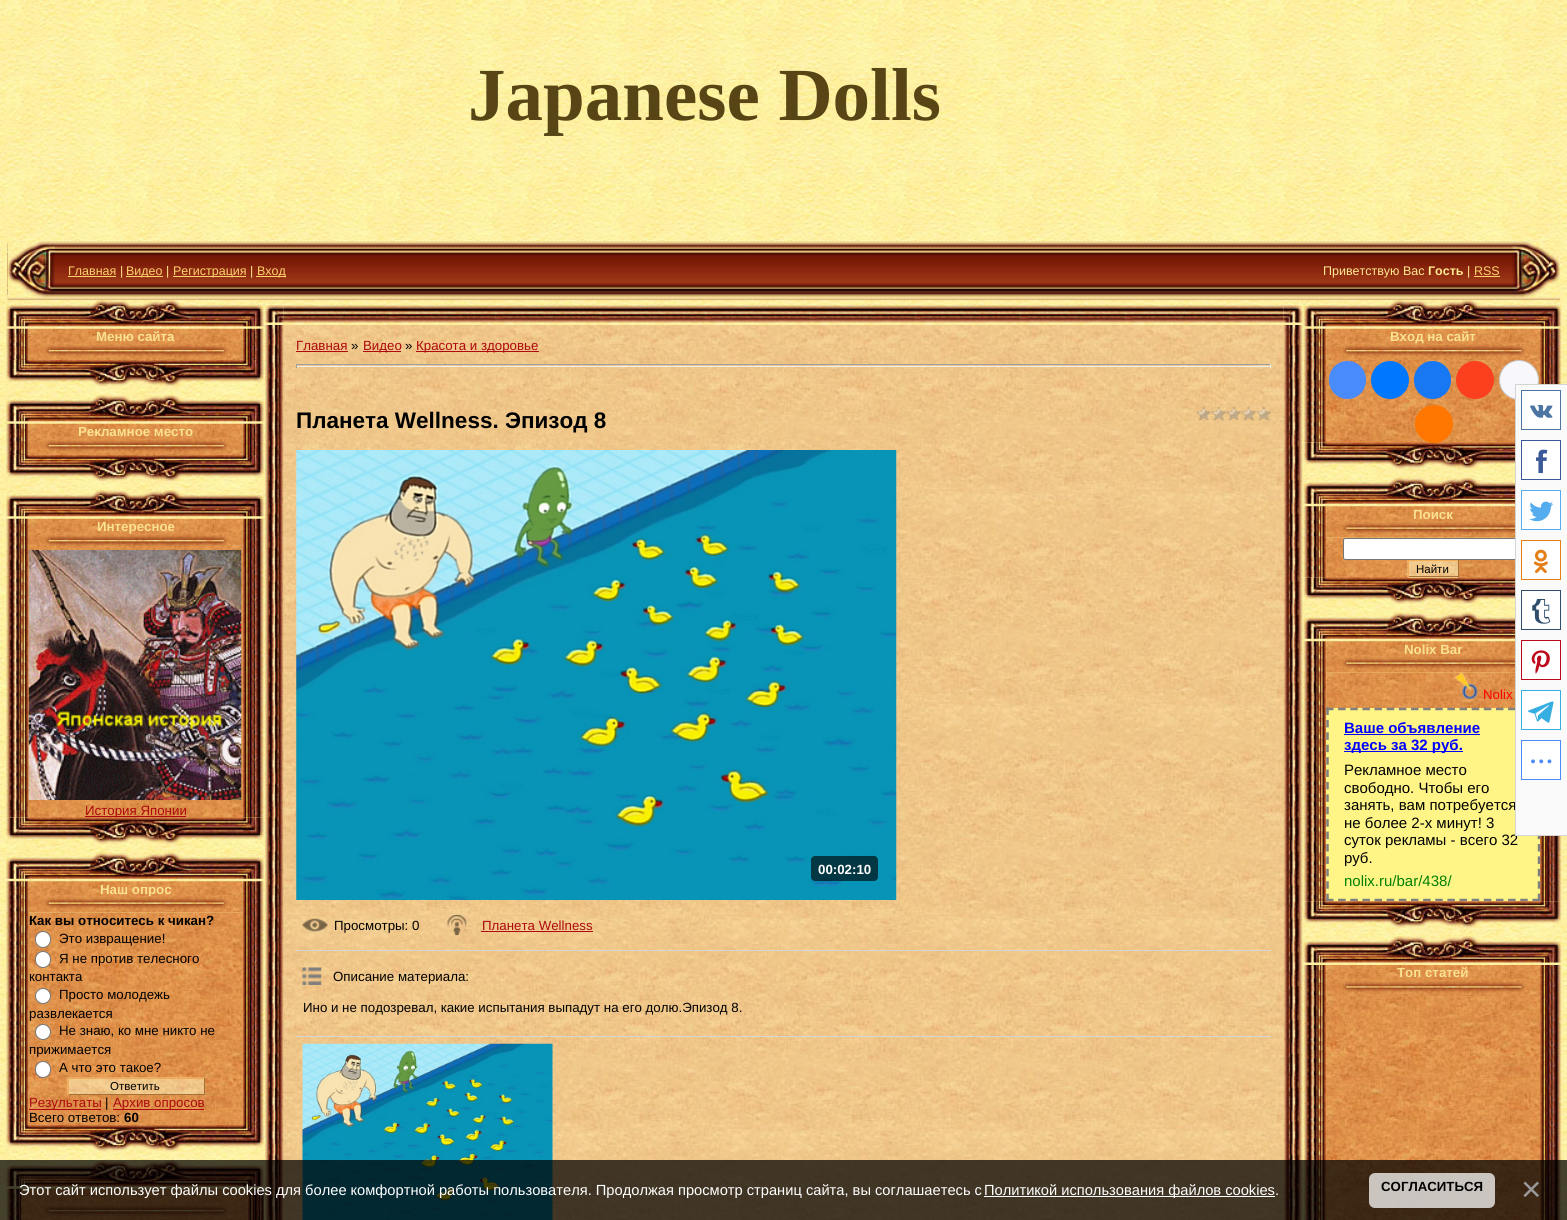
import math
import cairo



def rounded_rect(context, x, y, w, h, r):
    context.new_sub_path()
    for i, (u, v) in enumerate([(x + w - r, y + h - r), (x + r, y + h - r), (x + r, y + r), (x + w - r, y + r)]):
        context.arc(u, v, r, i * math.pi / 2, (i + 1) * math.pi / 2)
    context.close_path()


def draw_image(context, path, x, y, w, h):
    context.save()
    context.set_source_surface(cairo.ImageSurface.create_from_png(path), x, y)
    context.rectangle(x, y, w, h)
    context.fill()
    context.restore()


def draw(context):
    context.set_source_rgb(1, 1, 1)
    context.paint()
    draw_image(context, "images/1.png", 0, 0, 1567, 1220)
    draw_image(context, "images/2.png", 7, 241, 1553, 59)
    draw_image(context, "images/3.png", 7, 241, 48, 57)
    context.set_source_rgb(254 / 255, 211 / 255, 111 / 255)
    context.rectangle(68, 276, 48, 1)
    context.fill()
    context.rectangle(126, 276, 37, 1)
    context.fill()
    context.rectangle(173, 276, 73, 1)
    context.fill()
    context.rectangle(256, 276, 30, 1)
    context.fill()
    context.rectangle(1474, 276, 26, 1)
    context.fill()
    draw_image(context, "images/4.png", 1512, 241, 48, 57)
    draw_image(context, "images/6.png", 6, 328, 23, 32)
    draw_image(context, "images/7.png", 28, 328, 215, 32)
    draw_image(context, "images/9.png", 242, 328, 22, 32)
    draw_image(context, "images/12.png", 6, 423, 23, 32)
    draw_image(context, "images/13.png", 28, 423, 215, 32)
    draw_image(context, "images/14.png", 242, 423, 22, 32)
    draw_image(context, "images/17.png", 6, 518, 23, 300)
    draw_image(context, "images/18.png", 28, 518, 215, 32)
    draw_image(context, "images/20.png", 242, 518, 22, 300)
    draw_image(context, "images/25.png", 6, 881, 23, 244)
    draw_image(context, "images/26.png", 28, 881, 215, 32)
    draw_image(context, "images/28.png", 242, 881, 22, 244)
    draw_image(context, "images/33.png", 6, 1188, 17, 32)
    draw_image(context, "images/34.png", 22, 1188, 226, 32)
    draw_image(context, "images/36.png", 247, 1188, 17, 32)
    draw_image(context, "images/40.png", 263, 325, 21, 895)
    draw_image(context, "images/5.png", 6, 300, 258, 27)
    draw_image(context, "images/8.png", 44, 343, 184, 15)
    draw_image(context, "images/10.png", 6, 360, 258, 27)
    draw_image(context, "images/11.png", 6, 395, 258, 27)
    draw_image(context, "images/8.png", 44, 438, 184, 15)
    draw_image(context, "images/15.png", 6, 455, 258, 27)
    draw_image(context, "images/16.png", 6, 490, 258, 27)
    context.set_source_rgb(227 / 255, 148 / 255, 79 / 255)
    context.rectangle(29, 550, 214, 268)
    context.fill()
    draw_image(context, "images/21.png", 28, 550, 215, 268)
    draw_image(context, "images/22.png", 28, 550, 214, 250)
    context.set_source_rgb(173 / 255, 9 / 255, 14 / 255)
    context.rectangle(85, 816, 101, 1)
    context.fill()
    draw_image(context, "images/24.png", 6, 852, 258, 27)
    context.set_source_rgb(227 / 255, 148 / 255, 79 / 255)
    context.rectangle(242, 913, 1, 212)
    context.fill()
    draw_image(context, "images/29.png", 28, 912, 215, 213)
    context.set_source_rgb(1, 1, 1)
    rounded_rect(context, 35.5, 931.5, 15, 16, 7.5)
    context.fill_preserve()
    context.set_source_rgb(118 / 255, 118 / 255, 118 / 255)
    context.set_line_width(1)
    context.stroke()
    context.set_source_rgb(1, 1, 1)
    rounded_rect(context, 35.5, 951.5, 15, 16, 7.5)
    context.fill_preserve()
    context.set_source_rgb(118 / 255, 118 / 255, 118 / 255)
    context.stroke()
    context.set_source_rgb(1, 1, 1)
    context.arc(43, 996, 7.5, 0, 2 * math.pi)
    context.fill_preserve()
    context.set_source_rgb(118 / 255, 118 / 255, 118 / 255)
    context.stroke()
    context.set_source_rgb(1, 1, 1)
    context.arc(43, 1032, 7.5, 0, 2 * math.pi)
    context.fill_preserve()
    context.set_source_rgb(118 / 255, 118 / 255, 118 / 255)
    context.stroke()
    context.set_source_rgb(1, 1, 1)
    rounded_rect(context, 35.5, 1061.5, 15, 16, 7.5)
    context.fill_preserve()
    context.set_source_rgb(118 / 255, 118 / 255, 118 / 255)
    context.stroke()
    draw_image(context, "images/30.png", 67, 1077, 138, 18)
    context.set_source_rgb(243 / 255, 171 / 255, 86 / 255)
    context.rectangle(68, 1078, 137, 1)
    context.fill()
    context.set_source_rgb(162 / 255, 114 / 255, 57 / 255)
    context.rectangle(204, 1078, 1, 17)
    context.fill()
    context.rectangle(68, 1094, 137, 1)
    context.fill()
    context.set_source_rgb(243 / 255, 171 / 255, 86 / 255)
    context.rectangle(68, 1078, 1, 17)
    context.fill()
    context.set_source_rgb(173 / 255, 9 / 255, 14 / 255)
    context.rectangle(29, 1109, 72, 1)
    context.fill()
    context.rectangle(113, 1109, 91, 1)
    context.fill()
    draw_image(context, "images/31.png", 6, 1125, 258, 27)
    draw_image(context, "images/32.png", 6, 1160, 258, 27)
    draw_image(context, "images/35.png", 43, 1203, 185, 15)
    draw_image(context, "images/38.png", 283, 300, 1001, 25)
    draw_image(context, "images/37.png", 263, 300, 21, 23)
    draw_image(context, "images/39.png", 1283, 300, 21, 23)
    draw_image(context, "images/41.png", 283, 325, 1001, 895)
    context.rectangle(296, 351, 52, 1)
    context.fill()
    context.rectangle(363, 351, 38, 1)
    context.fill()
    context.rectangle(416, 351, 123, 1)
    context.fill()
    context.set_source_rgb(159 / 255, 159 / 255, 159 / 255)
    context.rectangle(296, 364, 975, 1)
    context.fill()
    context.set_source_rgb(238 / 255, 238 / 255, 238 / 255)
    context.rectangle(1270, 364, 1, 4)
    context.fill()
    context.rectangle(296, 366, 975, 1)
    context.fill()
    context.set_source_rgb(159 / 255, 159 / 255, 159 / 255)
    context.rectangle(296, 364, 1, 4)
    context.fill()
    draw_image(context, "images/42.png", 1196, 406, 75, 16)
    draw_image(context, "images/43.png", 296, 450, 601, 450)
    context.set_source_rgba(0, 0, 0, 0.63)
    rounded_rect(context, 811, 856, 67, 25, 4)
    context.fill()
    draw_image(context, "images/44.png", 302, 918, 26, 14)
    draw_image(context, "images/45.png", 447, 915, 20, 20)
    context.set_source_rgb(173 / 255, 9 / 255, 14 / 255)
    context.rectangle(481, 931, 112, 1)
    context.fill()
    context.set_source_rgb(214 / 255, 214 / 255, 214 / 255)
    context.rectangle(296, 950, 975, 1)
    context.fill()
    draw_image(context, "images/46.png", 302, 967, 20, 18)
    context.rectangle(296, 1036, 975, 1)
    context.fill()
    draw_image(context, "images/47.png", 302, 1043, 251, 177)
    draw_image(context, "images/48.png", 1283, 325, 21, 895)
    draw_image(context, "images/49.png", 1303, 300, 259, 27)
    draw_image(context, "images/50.png", 1303, 328, 24, 115)
    draw_image(context, "images/51.png", 1326, 328, 214, 32)
    draw_image(context, "images/53.png", 1540, 328, 22, 56)
    context.set_source_rgb(227 / 255, 148 / 255, 79 / 255)
    context.rectangle(1326, 360, 189, 83)
    context.fill()
    draw_image(context, "images/54.png", 1326, 360, 214, 83)
    context.set_source_rgb(73 / 255, 139 / 255, 250 / 255)
    rounded_rect(context, 1329, 361, 37, 38, 18.5)
    context.fill()
    context.set_source_rgb(0, 119 / 255, 1)
    context.arc(1390, 380, 19, 0, 2 * math.pi)
    context.fill()
    context.set_source_rgb(24 / 255, 119 / 255, 242 / 255)
    rounded_rect(context, 1414, 361, 37, 38, 18.5)
    context.fill()
    context.set_source_rgb(252 / 255, 63 / 255, 29 / 255)
    context.arc(1475, 380, 19, 0, 2 * math.pi)
    context.fill()
    context.set_source_rgb(248 / 255, 248 / 255, 252 / 255)
    context.arc(1519, 380, 19.5, 0, 2 * math.pi)
    context.fill_preserve()
    context.set_source_rgb(196 / 255, 196 / 255, 196 / 255)
    context.stroke()
    draw_image(context, "images/55.png", 1303, 442, 212, 27)
    context.set_source_rgb(1, 119 / 255, 0)
    context.arc(1434, 424, 19, 0, 2 * math.pi)
    context.fill()
    draw_image(context, "images/56.png", 1303, 477, 212, 27)
    draw_image(context, "images/57.png", 1303, 506, 24, 72)
    draw_image(context, "images/58.png", 1326, 506, 189, 32)
    draw_image(context, "images/59.png", 1341, 521, 174, 14)
    context.set_source_rgb(227 / 255, 148 / 255, 79 / 255)
    context.rectangle(1326, 538, 189, 40)
    context.fill()
    draw_image(context, "images/60.png", 1326, 537, 189, 41)
    context.set_source_rgb(1, 1, 1)
    rounded_rect(context, 1343.5, 538.5, 181, 21, 2)
    context.fill_preserve()
    context.set_source_rgb(118 / 255, 118 / 255, 118 / 255)
    context.stroke()
    draw_image(context, "images/62.png", 1303, 577, 212, 27)
    context.set_source_rgb(240 / 255, 193 / 255, 133 / 255)
    context.rectangle(1409, 577, 49, 1)
    context.fill()
    draw_image(context, "images/61.png", 1407, 560, 51, 18)
    context.set_source_rgb(243 / 255, 171 / 255, 86 / 255)
    context.rectangle(1408, 560, 51, 1)
    context.fill()
    context.set_source_rgb(162 / 255, 114 / 255, 57 / 255)
    context.rectangle(1458, 560, 1, 18)
    context.fill()
    context.rectangle(1408, 576, 51, 1)
    context.fill()
    context.set_source_rgb(243 / 255, 171 / 255, 86 / 255)
    context.rectangle(1408, 560, 1, 18)
    context.fill()
    draw_image(context, "images/63.png", 1303, 612, 212, 27)
    draw_image(context, "images/64.png", 1303, 641, 24, 261)
    draw_image(context, "images/65.png", 1326, 641, 189, 32)
    draw_image(context, "images/59.png", 1341, 656, 174, 14)
    draw_image(context, "images/66.png", 1540, 836, 22, 66)
    draw_image(context, "images/67.png", 1326, 672, 214, 230)
    draw_image(context, "images/68.png", 1455, 672, 23, 27)
    context.set_source_rgb(1, 245 / 255, 135 / 255)
    context.rectangle(1326, 708, 214, 193)
    context.fill()
    context.new_path()
    context.move_to(1326, 709)
    context.line_to(1540, 709)
    context.set_source_rgb(128 / 255, 128 / 255, 128 / 255)
    context.set_line_width(2.5)
    context.set_dash([7.5, 4.64])
    context.stroke()
    context.new_path()
    context.move_to(1539, 707.5)
    context.line_to(1539, 901)
    context.set_dash([7.5, 4.91])
    context.stroke()
    context.new_path()
    context.move_to(1326, 900)
    context.line_to(1540, 900)
    context.set_dash([7.5, 4.64])
    context.stroke()
    context.new_path()
    context.move_to(1327.5, 707.5)
    context.line_to(1327.5, 901)
    context.set_dash([7.5, 4.91])
    context.stroke()
    context.set_source_rgb(0, 0, 1)
    context.rectangle(1344, 734, 136, 1)
    context.fill()
    context.rectangle(1344, 751, 119, 1)
    context.fill()
    draw_image(context, "images/69.png", 1303, 901, 259, 27)
    draw_image(context, "images/70.png", 1303, 936, 259, 27)
    draw_image(context, "images/71.png", 1303, 965, 24, 255)
    draw_image(context, "images/72.png", 1326, 965, 214, 31)
    draw_image(context, "images/73.png", 1341, 980, 184, 14)
    draw_image(context, "images/74.png", 1540, 965, 22, 255)
    context.set_source_rgb(227 / 255, 148 / 255, 79 / 255)
    context.rectangle(1326, 996, 214, 224)
    context.fill()
    draw_image(context, "images/75.png", 1326, 996, 214, 224)
    context.set_source_rgba(0, 0, 0, 0.73)
    context.rectangle(0, 1160, 1567, 60)
    context.fill()
    context.set_source_rgb(1, 1, 1)
    context.rectangle(984, 1196, 291, 1)
    context.fill()
    context.set_source_rgba(1, 1, 1, 0.73)
    rounded_rect(context, 1369, 1173, 126, 35, 6)
    context.fill()
    context.select_font_face("Liberation Serif", cairo.FontSlant.NORMAL, cairo.FontWeight.BOLD)
    context.set_font_size(75)
    context.set_source_rgb(87 / 255, 69 / 255, 21 / 255)
    context.move_to(468, 120)
    context.show_text("Japanese Dolls")
    context.select_font_face("Liberation Sans")
    context.set_font_size(12.5)
    context.set_source_rgb(254 / 255, 211 / 255, 111 / 255)
    context.move_to(68, 275)
    context.show_text("Главная")
    context.set_source_rgb(1, 233 / 255, 145 / 255)
    context.move_to(120, 275)
    context.show_text("|")
    context.set_source_rgb(254 / 255, 211 / 255, 111 / 255)
    context.move_to(126, 275)
    context.show_text("Видео")
    context.set_source_rgb(1, 233 / 255, 145 / 255)
    context.move_to(166, 275)
    context.show_text("|")
    context.set_source_rgb(254 / 255, 211 / 255, 111 / 255)
    context.move_to(173, 275)
    context.show_text("Регистрация")
    context.set_source_rgb(1, 233 / 255, 145 / 255)
    context.move_to(250, 275)
    context.show_text("|")
    context.set_source_rgb(254 / 255, 211 / 255, 111 / 255)
    context.move_to(257, 275)
    context.show_text("Вход")
    context.set_source_rgb(1, 233 / 255, 145 / 255)
    context.move_to(1323, 275)
    context.show_text("Приветствую Вас")
    context.select_font_face("Liberation Sans", cairo.FontSlant.NORMAL, cairo.FontWeight.BOLD)
    context.move_to(1428, 275)
    context.show_text("Гость")
    context.select_font_face("Liberation Sans")
    context.move_to(1467, 275)
    context.show_text("|")
    context.set_source_rgb(254 / 255, 211 / 255, 111 / 255)
    context.move_to(1474, 275)
    context.show_text("RSS")
    context.select_font_face("Liberation Sans", cairo.FontSlant.NORMAL, cairo.FontWeight.BOLD)
    context.set_font_size(13.3)
    context.set_source_rgb(250 / 255, 226 / 255, 145 / 255)
    context.move_to(96, 341)
    context.show_text("Меню сайта")
    context.move_to(78, 436)
    context.show_text("Рекламное место")
    context.move_to(97, 531)
    context.show_text("Интересное")
    draw_image(context, "images/19.png", 44, 533, 184, 15)
    context.select_font_face("Liberation Sans")
    context.set_source_rgb(173 / 255, 9 / 255, 14 / 255)
    context.move_to(85, 815)
    context.show_text("История Японии")
    draw_image(context, "images/23.png", 6, 817, 258, 27)
    context.select_font_face("Liberation Sans", cairo.FontSlant.NORMAL, cairo.FontWeight.BOLD)
    context.set_source_rgb(250 / 255, 226 / 255, 145 / 255)
    context.move_to(100, 894)
    context.show_text("Наш опрос")
    draw_image(context, "images/27.png", 44, 896, 184, 14)
    context.set_source_rgb(0, 0, 0)
    context.move_to(29, 925)
    context.show_text("Как вы относитесь к чикан?")
    context.select_font_face("Liberation Sans")
    context.move_to(59, 943)
    context.show_text("Это извращение!")
    context.move_to(59, 963)
    context.show_text("Я не против телесного")
    context.move_to(29, 981)
    context.show_text("контакта")
    context.move_to(59, 999)
    context.show_text("Просто молодежь")
    context.move_to(29, 1018)
    context.show_text("развлекается")
    context.move_to(59, 1035)
    context.show_text("Не знаю, ко мне никто не")
    context.move_to(29, 1054)
    context.show_text("прижимается")
    context.move_to(59, 1072)
    context.show_text("А что это такое?")
    context.set_font_size(11.5)
    context.move_to(110, 1090)
    context.show_text("Ответить")
    context.set_font_size(13.3)
    context.set_source_rgb(173 / 255, 9 / 255, 14 / 255)
    context.move_to(29, 1107)
    context.show_text("Результаты")
    context.set_source_rgb(0, 0, 0)
    context.move_to(105, 1107)
    context.show_text("|")
    context.set_source_rgb(173 / 255, 9 / 255, 14 / 255)
    context.move_to(113, 1107)
    context.show_text("Архив опросов")
    context.set_source_rgb(0, 0, 0)
    context.move_to(29, 1122)
    context.show_text("Всего ответов:")
    context.select_font_face("Liberation Sans", cairo.FontSlant.NORMAL, cairo.FontWeight.BOLD)
    context.move_to(124, 1122)
    context.show_text("60")
    context.select_font_face("Liberation Sans")
    context.set_source_rgb(173 / 255, 9 / 255, 14 / 255)
    context.move_to(296, 350)
    context.show_text("Главная")
    context.set_source_rgb(0, 0, 0)
    context.move_to(351, 350)
    context.show_text("»")
    context.set_source_rgb(173 / 255, 9 / 255, 14 / 255)
    context.move_to(363, 350)
    context.show_text("Видео")
    context.set_source_rgb(0, 0, 0)
    context.move_to(405, 350)
    context.show_text("»")
    context.set_source_rgb(173 / 255, 9 / 255, 14 / 255)
    context.move_to(416, 350)
    context.show_text("Красота и здоровье")
    context.select_font_face("Liberation Sans", cairo.FontSlant.NORMAL, cairo.FontWeight.BOLD)
    context.set_font_size(22.5)
    context.set_source_rgb(0, 0, 0)
    context.move_to(296, 428)
    context.show_text("Планета Wellness. Эпизод 8")
    context.set_font_size(13.3)
    context.set_source_rgb(1, 1, 1)
    context.move_to(818, 874)
    context.show_text("00:02:10")
    context.select_font_face("Liberation Sans")
    context.set_source_rgb(0, 0, 0)
    context.move_to(334, 930)
    context.show_text("Просмотры: 0")
    context.set_source_rgb(173 / 255, 9 / 255, 14 / 255)
    context.move_to(482, 930)
    context.show_text("Планета Wellness")
    context.set_source_rgb(0, 0, 0)
    context.move_to(333, 981)
    context.show_text("Описание материала:")
    context.move_to(303, 1012)
    context.show_text("Ино и не подозревал, какие испытания выпадут на его долю.Эпизод 8.")
    context.select_font_face("Liberation Sans", cairo.FontSlant.NORMAL, cairo.FontWeight.BOLD)
    context.set_source_rgb(250 / 255, 226 / 255, 145 / 255)
    context.move_to(1390, 341)
    context.show_text("Вход на сайт")
    draw_image(context, "images/52.png", 1341, 343, 184, 15)
    context.move_to(1413, 519)
    context.show_text("Поиск")
    context.select_font_face("Liberation Sans")
    context.set_font_size(11.5)
    context.set_source_rgb(0, 0, 0)
    context.move_to(1416, 573)
    context.show_text("Найти")
    context.select_font_face("Liberation Sans", cairo.FontSlant.NORMAL, cairo.FontWeight.BOLD)
    context.set_font_size(13.3)
    context.set_source_rgb(250 / 255, 226 / 255, 145 / 255)
    context.move_to(1404, 654)
    context.show_text("Nolix Bar")
    context.select_font_face("Liberation Sans")
    context.set_source_rgb(1, 0, 0)
    context.move_to(1483, 699)
    context.show_text("Nolix")
    context.select_font_face("Liberation Sans", cairo.FontSlant.NORMAL, cairo.FontWeight.BOLD)
    context.set_font_size(15)
    context.set_source_rgb(0, 0, 1)
    context.move_to(1344, 733)
    context.show_text("Ваше объявление")
    context.move_to(1344, 750)
    context.show_text("здесь за 32 руб.")
    context.select_font_face("Liberation Sans")
    context.set_source_rgb(0, 0, 0)
    context.move_to(1344, 775)
    context.show_text("Рекламное место")
    context.move_to(1344, 793)
    context.show_text("свободно. Чтобы его")
    context.move_to(1344, 810)
    context.show_text("занять, вам потребуется")
    context.move_to(1344, 828)
    context.show_text("не более 2-х минут! 3")
    context.move_to(1344, 845)
    context.show_text("суток рекламы - всего 32")
    context.move_to(1344, 863)
    context.show_text("руб.")
    context.set_source_rgb(0, 128 / 255, 0)
    context.move_to(1344, 886)
    context.show_text("nolix.ru/bar/438/")
    context.select_font_face("Liberation Sans", cairo.FontSlant.NORMAL, cairo.FontWeight.BOLD)
    context.set_font_size(13.3)
    context.set_source_rgb(250 / 255, 226 / 255, 145 / 255)
    context.move_to(1397, 977)
    context.show_text("Топ статей")
    context.set_source_rgb(250 / 255, 250 / 255, 250 / 255)
    context.rectangle(1515.5, 384.5, 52, 451)
    context.fill_preserve()
    context.set_source_rgb(212 / 255, 212 / 255, 212 / 255)
    context.set_line_width(1)
    context.set_dash([])
    context.stroke()
    context.set_source_rgb(1, 1, 1)
    context.rectangle(1521.5, 390.5, 39, 39)
    context.fill_preserve()
    context.set_source_rgb(77 / 255, 117 / 255, 163 / 255)
    context.stroke()
    draw_image(context, "images/76.png", 1530, 405, 23, 13)
    context.set_source_rgb(1, 1, 1)
    context.rectangle(1521.5, 440.5, 39, 39)
    context.fill_preserve()
    context.set_source_rgb(59 / 255, 89 / 255, 152 / 255)
    context.stroke()
    draw_image(context, "images/77.png", 1536, 449, 12, 25)
    context.set_source_rgb(1, 1, 1)
    context.rectangle(1521.5, 490.5, 39, 39)
    context.fill_preserve()
    context.set_source_rgb(85 / 255, 172 / 255, 238 / 255)
    context.stroke()
    draw_image(context, "images/78.png", 1529, 501, 25, 21)
    context.set_source_rgb(1, 1, 1)
    context.rectangle(1521.5, 540.5, 39, 39)
    context.fill_preserve()
    context.set_source_rgb(230 / 255, 126 / 255, 23 / 255)
    context.stroke()
    draw_image(context, "images/79.png", 1533, 549, 15, 24)
    context.set_source_rgb(1, 1, 1)
    context.rectangle(1521.5, 590.5, 39, 39)
    context.fill_preserve()
    context.set_source_rgb(48 / 255, 78 / 255, 108 / 255)
    context.stroke()
    draw_image(context, "images/80.png", 1532, 599, 19, 25)
    context.set_source_rgb(1, 1, 1)
    context.rectangle(1521.5, 640.5, 39, 39)
    context.fill_preserve()
    context.set_source_rgb(189 / 255, 8 / 255, 28 / 255)
    context.stroke()
    draw_image(context, "images/81.png", 1531, 650, 19, 24)
    context.set_source_rgb(1, 1, 1)
    context.rectangle(1521.5, 690.5, 39, 39)
    context.fill_preserve()
    context.set_source_rgb(55 / 255, 174 / 255, 226 / 255)
    context.stroke()
    draw_image(context, "images/82.png", 1528, 701, 26, 22)
    context.set_source_rgb(1, 1, 1)
    context.rectangle(1521.5, 740.5, 39, 39)
    context.fill_preserve()
    context.set_source_rgb(73 / 255, 139 / 255, 250 / 255)
    context.stroke()
    draw_image(context, "images/83.png", 1531, 759, 21, 5)
    context.select_font_face("Liberation Sans")
    context.set_font_size(14.67)
    context.set_source_rgb(1, 1, 1)
    context.move_to(19, 1195)
    context.show_text("Этот сайт использует файлы cookies для более комфортной работы пользователя. Продолжая просмотр страниц сайта, вы соглашаетесь с")
    context.move_to(984, 1195)
    context.show_text("Политикой использования файлов cookies")
    context.move_to(1275, 1195)
    context.show_text(".")
    context.select_font_face("Liberation Sans", cairo.FontSlant.NORMAL, cairo.FontWeight.BOLD)
    context.set_font_size(13.25)
    context.set_source_rgb(0, 0, 0)
    context.move_to(1381, 1191)
    context.show_text("СОГЛАСИТЬСЯ")
    context.select_font_face("Liberation Sans")
    context.set_font_size(35)
    context.set_source_rgb(153 / 255, 153 / 255, 153 / 255)
    context.move_to(1521, 1201)
    context.show_text("×")


surface = cairo.ImageSurface(cairo.Format.RGB24, 1567, 1220)
context = cairo.Context(surface)
options = cairo.FontOptions()
options.set_hint_metrics(cairo.HintMetrics.OFF)
options.set_hint_style(cairo.HintStyle.NONE)
context.set_font_options(options)
context.set_miter_limit(4)
draw(context)
surface.write_to_png("out.png")
